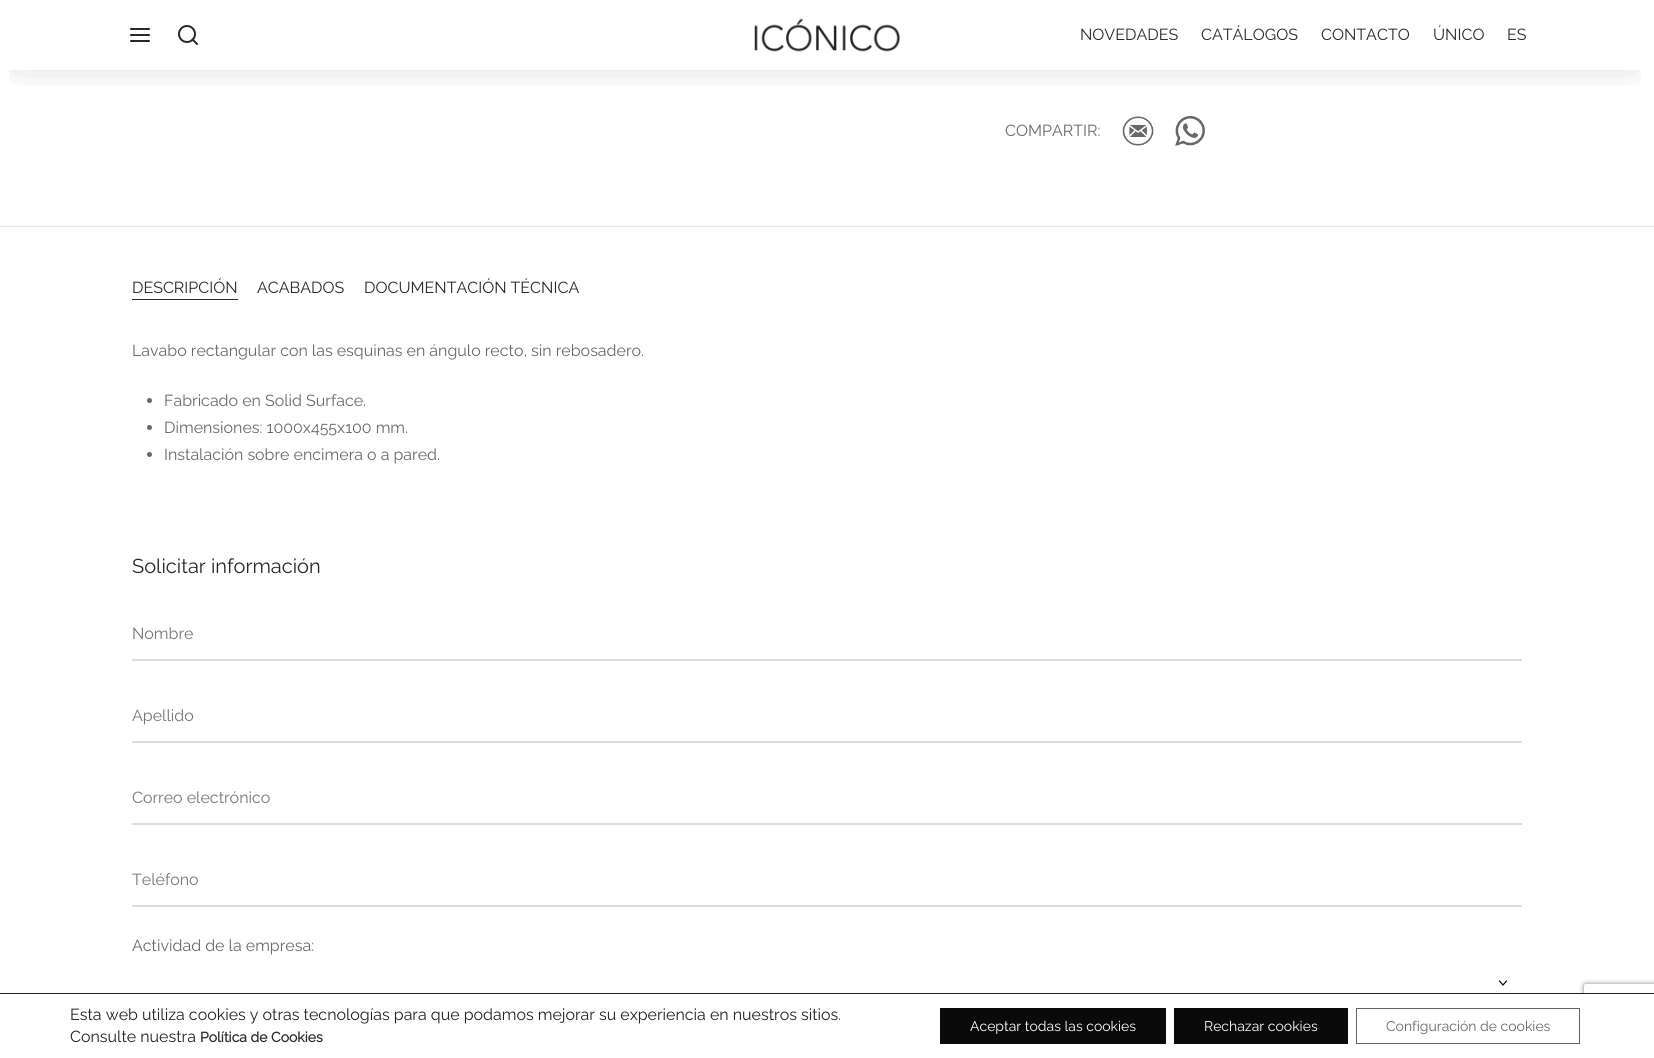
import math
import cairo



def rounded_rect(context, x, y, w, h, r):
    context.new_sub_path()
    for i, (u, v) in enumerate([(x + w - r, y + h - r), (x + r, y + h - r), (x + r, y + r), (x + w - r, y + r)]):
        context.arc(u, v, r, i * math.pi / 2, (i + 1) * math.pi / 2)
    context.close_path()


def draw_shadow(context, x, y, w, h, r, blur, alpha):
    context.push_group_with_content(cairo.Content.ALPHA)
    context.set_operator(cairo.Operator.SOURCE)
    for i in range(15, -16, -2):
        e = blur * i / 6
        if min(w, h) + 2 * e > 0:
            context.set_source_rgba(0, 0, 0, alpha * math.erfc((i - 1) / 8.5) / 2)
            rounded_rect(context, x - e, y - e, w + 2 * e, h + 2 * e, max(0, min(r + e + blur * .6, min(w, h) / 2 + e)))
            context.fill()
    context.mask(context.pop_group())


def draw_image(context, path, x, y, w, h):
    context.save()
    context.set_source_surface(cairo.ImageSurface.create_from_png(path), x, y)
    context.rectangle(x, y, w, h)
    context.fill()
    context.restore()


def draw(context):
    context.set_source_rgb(1, 1, 1)
    context.paint()
    draw_image(context, "images/2.png", 391, 0, 371, 63)
    draw_image(context, "images/3.png", 1122, 116, 32, 30)
    draw_image(context, "images/4.png", 1175, 116, 30, 30)
    context.save()
    context.rectangle(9, 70, 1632, 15)
    context.clip()
    context.set_source_rgb(0, 0, 0)
    draw_shadow(context, 18, 22, 1614, 30, 0, 22.5, 0.3)
    context.restore()
    context.new_path()
    context.move_to(131, 35)
    context.line_to(149, 35)
    context.move_to(131, 29)
    context.line_to(149, 29)
    context.move_to(131, 41)
    context.line_to(149, 41)
    context.set_source_rgb(40 / 255, 40 / 255, 40 / 255)
    context.set_line_cap(cairo.LineCap.ROUND)
    context.set_line_join(cairo.LineJoin.ROUND)
    context.stroke()
    context.arc(187, 34, 8, 0, 2 * math.pi)
    context.set_line_cap(cairo.LineCap.BUTT)
    context.set_line_join(cairo.LineJoin.MITER)
    context.stroke()
    context.new_path()
    context.move_to(197, 44)
    context.line_to(192.5, 39.5)
    context.set_line_cap(cairo.LineCap.ROUND)
    context.set_line_join(cairo.LineJoin.ROUND)
    context.stroke()
    draw_image(context, "images/1.png", 754, 18, 147, 34)
    context.set_source_rgb(230 / 255, 230 / 255, 230 / 255)
    context.rectangle(0, 226, 1654, 1)
    context.fill()
    context.set_source_rgb(40 / 255, 40 / 255, 40 / 255)
    context.rectangle(132, 299, 106, 1)
    context.fill()
    context.set_source_rgb(104 / 255, 104 / 255, 104 / 255)
    context.arc(149.5, 400.5, 2.5, 0, 2 * math.pi)
    context.fill()
    context.arc(149.5, 427.5, 2.5, 0, 2 * math.pi)
    context.fill()
    context.arc(149.5, 454.5, 2.5, 0, 2 * math.pi)
    context.fill()
    context.set_source_rgb(221 / 255, 221 / 255, 221 / 255)
    context.rectangle(132, 659, 1390, 2)
    context.fill()
    context.rectangle(132, 741, 1390, 2)
    context.fill()
    context.rectangle(132, 823, 1390, 2)
    context.fill()
    context.rectangle(132, 905, 1390, 2)
    context.fill()
    context.new_path()
    context.move_to(1499.5, 981)
    context.line_to(1503, 985)
    context.line_to(1506.5, 981)
    context.set_source_rgb(0, 0, 0)
    context.set_line_width(1.2)
    context.stroke()
    context.save()
    context.set_fill_rule(cairo.FillRule.EVEN_ODD)
    context.new_path()
    context.move_to(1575, 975)
    context.line_to(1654, 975)
    context.line_to(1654, 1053)
    context.line_to(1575, 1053)
    context.close_path()
    context.move_to(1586, 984)
    context.line_to(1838, 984)
    context.curve_to(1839, 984, 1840, 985, 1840, 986)
    context.line_to(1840, 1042)
    context.curve_to(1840, 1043, 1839, 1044, 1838, 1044)
    context.line_to(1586, 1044)
    context.curve_to(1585, 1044, 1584, 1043, 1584, 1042)
    context.line_to(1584, 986)
    context.curve_to(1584, 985, 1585, 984, 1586, 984)
    context.close_path()
    context.clip()
    context.set_source_rgb(128 / 255, 128 / 255, 128 / 255)
    draw_shadow(context, 1584, 984, 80, 60, 2, 2.5, 1)
    context.restore()
    context.set_source_rgb(1, 1, 1)
    context.rectangle(1579, 994, 75, 55)
    context.fill()
    context.set_source_rgb(32 / 255, 32 / 255, 32 / 255)
    context.rectangle(0, 993, 1654, 1)
    context.fill()
    context.set_source_rgb(10 / 255, 10 / 255, 10 / 255)
    context.rectangle(940, 1008, 226, 36)
    context.fill()
    context.rectangle(1174, 1008, 174, 36)
    context.fill()
    context.rectangle(1356.5, 1008.5, 223, 35)
    context.set_source_rgb(99 / 255, 99 / 255, 99 / 255)
    context.set_line_width(1)
    context.set_line_cap(cairo.LineCap.BUTT)
    context.set_line_join(cairo.LineJoin.MITER)
    context.stroke()
    context.select_font_face("Raleway")
    context.set_font_size(16)
    context.set_source_rgb(40 / 255, 40 / 255, 40 / 255)
    context.move_to(1080, 40)
    context.show_text("NOVEDADES")
    context.move_to(1201, 40)
    context.show_text("CATÁLOGOS")
    context.move_to(1321, 40)
    context.show_text("CONTACTO")
    context.move_to(1433, 40)
    context.show_text("ÚNICO")
    context.move_to(1507, 40)
    context.show_text("ES")
    context.set_source_rgb(104 / 255, 104 / 255, 104 / 255)
    context.move_to(1005, 136)
    context.show_text("COMPARTIR:")
    context.set_source_rgb(40 / 255, 40 / 255, 40 / 255)
    context.move_to(132, 293)
    context.show_text("DESCRIPCIÓN")
    context.move_to(257, 293)
    context.show_text("ACABADOS")
    context.move_to(364, 293)
    context.show_text("DOCUMENTACIÓN TÉCNICA")
    context.set_source_rgb(104 / 255, 104 / 255, 104 / 255)
    context.move_to(132, 356)
    context.show_text("Lavabo rectangular con las esquinas en ángulo recto, sin rebosadero.")
    context.move_to(164, 406)
    context.show_text("Fabricado en Solid Surface.")
    context.move_to(164, 433)
    context.show_text("Dimensiones: 1000x455x100 mm.")
    context.move_to(164, 460)
    context.show_text("Instalación sobre encimera o a pared.")
    context.set_font_size(20)
    context.set_source_rgb(40 / 255, 40 / 255, 40 / 255)
    context.move_to(132, 573)
    context.show_text("Solicitar información")
    context.set_font_size(16)
    context.set_source_rgb(117 / 255, 117 / 255, 117 / 255)
    context.move_to(132, 639)
    context.show_text("Nombre")
    context.move_to(132, 721)
    context.show_text("Apellido")
    context.move_to(132, 803)
    context.show_text("Correo electrónico")
    context.move_to(132, 885)
    context.show_text("Teléfono")
    context.set_source_rgb(104 / 255, 104 / 255, 104 / 255)
    context.move_to(132, 951)
    context.show_text("Actividad de la empresa:")
    context.set_source_rgb(32 / 255, 32 / 255, 32 / 255)
    context.move_to(70, 1020)
    context.show_text("Esta web utiliza cookies y otras tecnologías para que podamos mejorar su experiencia en nuestros sitios.")
    context.move_to(70, 1042)
    context.show_text("Consulte nuestra")
    context.select_font_face("Raleway", cairo.FontSlant.NORMAL, cairo.FontWeight.BOLD)
    context.set_font_size(14)
    context.set_source_rgb(40 / 255, 40 / 255, 40 / 255)
    context.move_to(200, 1042)
    context.show_text("Política de Cookies")
    context.select_font_face("Raleway")
    context.set_source_rgb(1, 1, 1)
    context.move_to(970, 1031)
    context.show_text("Aceptar todas las cookies")
    context.move_to(1204, 1031)
    context.show_text("Rechazar cookies")
    context.set_source_rgb(104 / 255, 104 / 255, 104 / 255)
    context.move_to(1386, 1031)
    context.show_text("Configuración de cookies")


surface = cairo.ImageSurface(cairo.Format.RGB24, 1654, 1058)
context = cairo.Context(surface)
options = cairo.FontOptions()
options.set_hint_metrics(cairo.HintMetrics.OFF)
options.set_hint_style(cairo.HintStyle.NONE)
context.set_font_options(options)
context.set_miter_limit(4)
draw(context)
surface.write_to_png("out.png")
